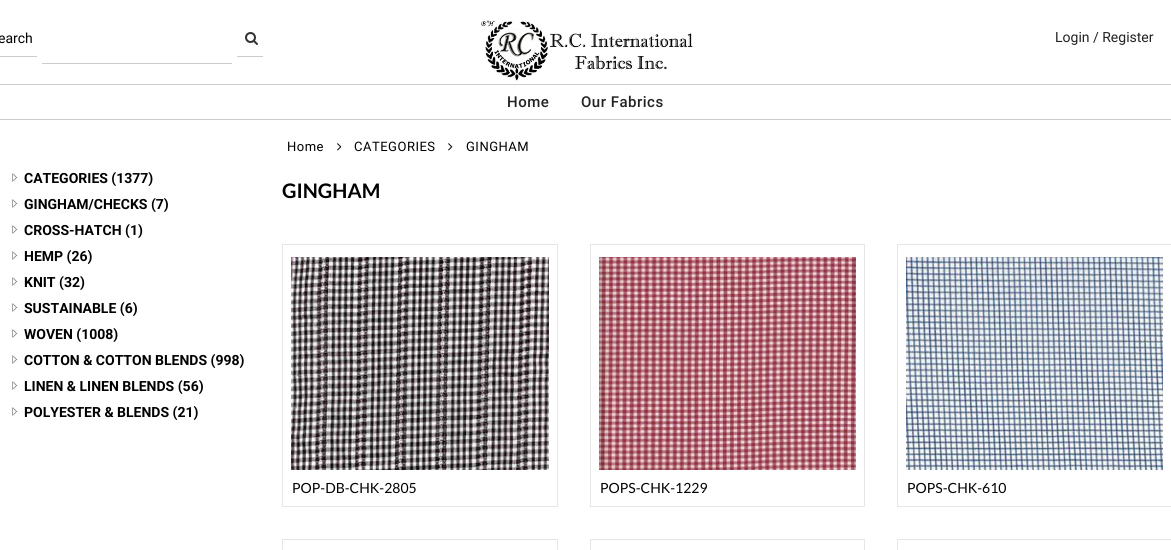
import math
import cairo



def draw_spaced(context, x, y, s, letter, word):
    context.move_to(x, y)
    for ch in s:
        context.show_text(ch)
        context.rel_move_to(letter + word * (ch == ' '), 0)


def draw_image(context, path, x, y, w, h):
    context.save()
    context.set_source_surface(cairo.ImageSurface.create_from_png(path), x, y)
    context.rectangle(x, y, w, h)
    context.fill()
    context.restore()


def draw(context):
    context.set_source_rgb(1, 1, 1)
    context.paint()
    context.set_source_rgb(204 / 255, 204 / 255, 204 / 255)
    context.rectangle(0, 56, 37, 1)
    context.fill()
    draw_image(context, "images/1.png", 245, 32, 13, 13)
    context.rectangle(237, 56, 26, 1)
    context.fill()
    context.rectangle(42, 63, 190, 1)
    context.fill()
    draw_image(context, "images/2.png", 481, 20, 212, 61)
    context.rectangle(0, 84, 1171, 1)
    context.fill()
    context.rectangle(0, 119, 1171, 1)
    context.fill()
    draw_image(context, "images/3.png", 12, 173, 6, 9)
    draw_image(context, "images/3.png", 12, 199, 6, 9)
    draw_image(context, "images/3.png", 12, 225, 6, 9)
    draw_image(context, "images/3.png", 12, 251, 6, 9)
    draw_image(context, "images/3.png", 12, 277, 6, 9)
    draw_image(context, "images/3.png", 12, 303, 6, 9)
    draw_image(context, "images/3.png", 12, 329, 6, 9)
    draw_image(context, "images/3.png", 12, 355, 6, 9)
    draw_image(context, "images/3.png", 12, 381, 6, 9)
    draw_image(context, "images/3.png", 12, 407, 6, 9)
    draw_image(context, "images/4.png", 337, 143, 5, 8)
    draw_image(context, "images/4.png", 448, 143, 5, 8)
    context.rectangle(282.5, 244.5, 275, 262)
    context.set_source_rgb(230 / 255, 230 / 255, 230 / 255)
    context.set_line_width(1)
    context.stroke()
    draw_image(context, "images/5.png", 291, 257, 258, 213)
    context.rectangle(590.5, 244.5, 274, 262)
    context.stroke()
    draw_image(context, "images/6.png", 599, 257, 257, 213)
    context.rectangle(897.5, 244.5, 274, 262)
    context.stroke()
    draw_image(context, "images/7.png", 906, 257, 257, 213)
    context.rectangle(282.5, 539.5, 275, 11)
    context.stroke()
    context.rectangle(590.5, 539.5, 274, 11)
    context.stroke()
    context.rectangle(897.5, 539.5, 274, 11)
    context.stroke()
    context.select_font_face("Roboto")
    context.set_font_size(14)
    context.set_source_rgb(0, 0, 0)
    context.move_to(-2, 43)
    context.show_text("earch")
    context.set_source_rgb(34 / 255, 34 / 255, 34 / 255)
    context.move_to(1055, 42)
    context.show_text("Login / Register")
    context.select_font_face("Roboto Medium")
    context.set_font_size(15)
    draw_spaced(context, 507, 107, "Home", 0.5, 0)
    draw_spaced(context, 581, 107, "Our Fabrics", 0.5, 0)
    context.select_font_face("Roboto", cairo.FontSlant.NORMAL, cairo.FontWeight.BOLD)
    context.set_font_size(14)
    context.set_source_rgb(0, 0, 0)
    context.move_to(24, 183)
    context.show_text("CATEGORIES (1377)")
    context.move_to(24, 209)
    context.show_text("GINGHAM/CHECKS (7)")
    context.move_to(24, 235)
    context.show_text("CROSS-HATCH (1)")
    context.move_to(24, 261)
    context.show_text("HEMP (26)")
    context.move_to(24, 287)
    context.show_text("KNIT (32)")
    context.move_to(24, 313)
    context.show_text("SUSTAINABLE (6)")
    context.move_to(24, 339)
    context.show_text("WOVEN (1008)")
    context.move_to(24, 365)
    context.show_text("COTTON & COTTON BLENDS (998)")
    context.move_to(24, 391)
    context.show_text("LINEN & LINEN BLENDS (56)")
    context.move_to(24, 417)
    context.show_text("POLYESTER & BLENDS (21)")
    context.select_font_face("Roboto")
    context.set_font_size(13)
    draw_spaced(context, 287, 151, "Home", 0.5, 0)
    draw_spaced(context, 354, 151, "CATEGORIES", 0.5, 0)
    draw_spaced(context, 466, 151, "GINGHAM", 0.5, 0)
    context.select_font_face("Lato", cairo.FontSlant.NORMAL, cairo.FontWeight.BOLD)
    context.set_font_size(20)
    context.move_to(282, 198)
    context.show_text("GINGHAM")
    context.select_font_face("Lato")
    context.set_font_size(14)
    context.move_to(292, 493)
    context.show_text("POP-DB-CHK-2805")
    context.move_to(600, 493)
    context.show_text("POPS-CHK-1229")
    context.move_to(907, 493)
    context.show_text("POPS-CHK-610")


surface = cairo.ImageSurface(cairo.Format.RGB24, 1171, 550)
context = cairo.Context(surface)
options = cairo.FontOptions()
options.set_hint_metrics(cairo.HintMetrics.OFF)
options.set_hint_style(cairo.HintStyle.NONE)
context.set_font_options(options)
context.set_miter_limit(4)
draw(context)
surface.write_to_png("out.png")
